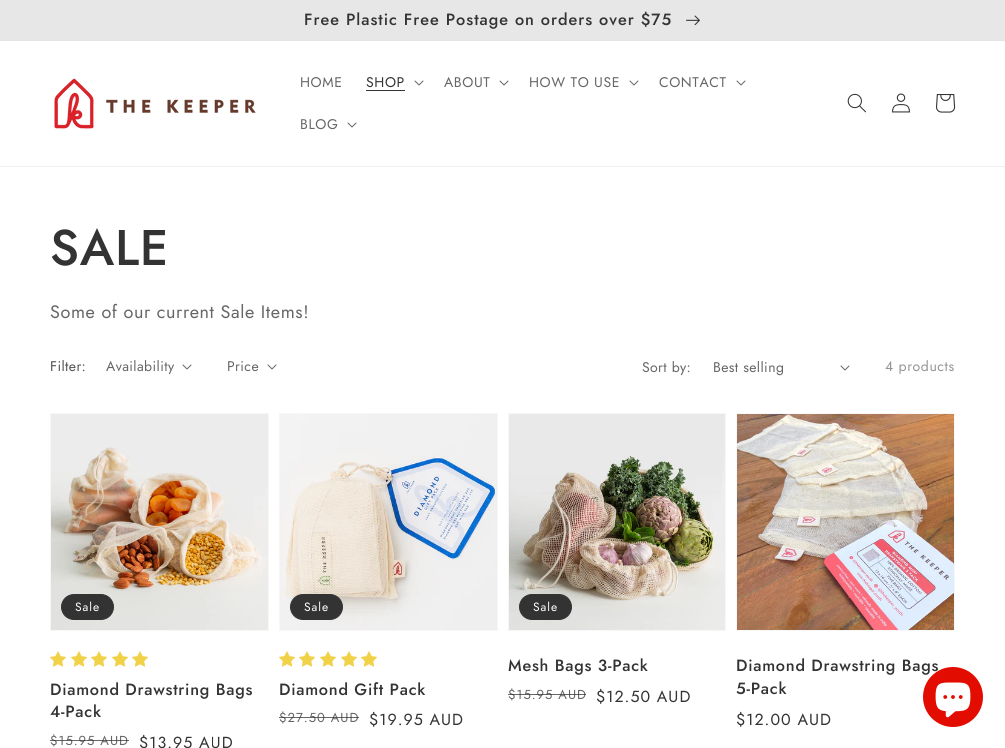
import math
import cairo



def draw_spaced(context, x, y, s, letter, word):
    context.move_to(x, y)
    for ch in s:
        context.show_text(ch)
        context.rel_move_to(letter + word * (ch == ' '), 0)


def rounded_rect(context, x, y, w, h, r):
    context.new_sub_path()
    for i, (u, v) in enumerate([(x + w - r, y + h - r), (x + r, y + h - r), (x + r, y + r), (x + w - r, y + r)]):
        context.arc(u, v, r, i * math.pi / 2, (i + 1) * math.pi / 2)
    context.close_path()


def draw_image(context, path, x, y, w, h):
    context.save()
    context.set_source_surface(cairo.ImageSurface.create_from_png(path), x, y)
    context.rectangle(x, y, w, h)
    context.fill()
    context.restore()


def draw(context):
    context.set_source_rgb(1, 1, 1)
    context.paint()
    context.set_source_rgb(228 / 255, 228 / 255, 228 / 255)
    context.rectangle(0, 40, 1005, 1)
    context.fill()
    context.set_source_rgb(231 / 255, 231 / 255, 231 / 255)
    context.rectangle(0, 0, 1005, 40)
    context.fill()
    draw_image(context, "images/1.png", 686, 15, 14, 11)
    context.set_source_rgb(239 / 255, 239 / 255, 239 / 255)
    context.rectangle(0, 166, 1005, 1)
    context.fill()
    draw_image(context, "images/2.png", 54, 78, 202, 51)
    context.set_source_rgb(51 / 255, 51 / 255, 51 / 255)
    context.rectangle(366, 90, 39, 1)
    context.fill()
    draw_image(context, "images/3.png", 414, 80, 10, 6)
    draw_image(context, "images/3.png", 499, 80, 10, 6)
    draw_image(context, "images/3.png", 629, 80, 10, 6)
    draw_image(context, "images/3.png", 736, 80, 10, 6)
    draw_image(context, "images/3.png", 347, 122, 10, 6)
    draw_image(context, "images/4.png", 847, 93, 19, 20)
    draw_image(context, "images/5.png", 892, 93, 18, 20)
    draw_image(context, "images/6.png", 936, 94, 20, 19)
    draw_image(context, "images/3.png", 182, 364, 10, 6)
    draw_image(context, "images/3.png", 267, 364, 10, 6)
    draw_image(context, "images/3.png", 840, 365, 10, 6)
    context.rectangle(50.5, 413.5, 218, 217)
    context.set_source_rgb(247 / 255, 247 / 255, 247 / 255)
    context.set_line_width(1)
    context.stroke()
    draw_image(context, "images/7.png", 51, 414, 217, 216)
    context.set_source_rgb(51 / 255, 51 / 255, 51 / 255)
    rounded_rect(context, 61.5, 594.5, 52, 25, 12.5)
    context.fill_preserve()
    context.stroke()
    draw_image(context, "images/8.png", 50, 651, 16, 16)
    draw_image(context, "images/8.png", 71, 651, 16, 16)
    draw_image(context, "images/8.png", 91, 651, 16, 16)
    draw_image(context, "images/8.png", 112, 651, 16, 16)
    draw_image(context, "images/8.png", 132, 651, 16, 16)
    context.rectangle(279.5, 413.5, 218, 217)
    context.set_source_rgb(247 / 255, 247 / 255, 247 / 255)
    context.stroke()
    draw_image(context, "images/9.png", 280, 414, 217, 216)
    context.set_source_rgb(51 / 255, 51 / 255, 51 / 255)
    rounded_rect(context, 290.5, 594.5, 52, 25, 12.5)
    context.fill_preserve()
    context.stroke()
    draw_image(context, "images/8.png", 279, 651, 16, 16)
    draw_image(context, "images/8.png", 299, 651, 16, 16)
    draw_image(context, "images/8.png", 320, 651, 16, 16)
    draw_image(context, "images/8.png", 341, 651, 16, 16)
    draw_image(context, "images/8.png", 361, 651, 16, 16)
    context.rectangle(508.5, 413.5, 217, 217)
    context.set_source_rgb(247 / 255, 247 / 255, 247 / 255)
    context.stroke()
    draw_image(context, "images/10.png", 509, 414, 216, 216)
    context.set_source_rgb(51 / 255, 51 / 255, 51 / 255)
    rounded_rect(context, 519.5, 594.5, 52, 25, 12.5)
    context.fill_preserve()
    context.stroke()
    context.rectangle(736.5, 413.5, 218, 217)
    context.set_source_rgb(247 / 255, 247 / 255, 247 / 255)
    context.stroke()
    draw_image(context, "images/11.png", 737, 414, 217, 216)
    context.select_font_face("Jost Medium")
    context.set_font_size(16.25)
    context.set_source_rgb(51 / 255, 51 / 255, 51 / 255)
    draw_spaced(context, 304, 25, "Free Plastic Free Postage on orders over $75", 1, 0)
    context.select_font_face("Jost")
    context.set_font_size(14)
    context.set_source_rgb(102 / 255, 102 / 255, 102 / 255)
    draw_spaced(context, 300, 87, "HOME", 0.6, 0)
    context.set_source_rgb(51 / 255, 51 / 255, 51 / 255)
    draw_spaced(context, 366, 87, "SHOP", 0.6, 0)
    context.set_source_rgb(102 / 255, 102 / 255, 102 / 255)
    draw_spaced(context, 444, 87, "ABOUT", 0.6, 0)
    draw_spaced(context, 529, 87, "HOW TO USE", 0.6, 0)
    draw_spaced(context, 659, 87, "CONTACT", 0.6, 0)
    draw_spaced(context, 300, 129, "BLOG", 0.6, 0)
    context.select_font_face("Jost Medium")
    context.set_font_size(50)
    context.set_source_rgb(51 / 255, 51 / 255, 51 / 255)
    draw_spaced(context, 50, 265, "SALE", 0.75, 0)
    context.select_font_face("Jost")
    context.set_font_size(18)
    context.set_source_rgb(102 / 255, 102 / 255, 102 / 255)
    draw_spaced(context, 50, 318, "Some of our current Sale Items!", 0.6, 0)
    context.set_font_size(14)
    context.set_source_rgb(82 / 255, 82 / 255, 82 / 255)
    draw_spaced(context, 50, 371, "Filter:", 0.4, 0)
    context.set_source_rgb(102 / 255, 102 / 255, 102 / 255)
    draw_spaced(context, 106, 371, "Availability", 0.4, 0)
    draw_spaced(context, 227, 371, "Price", 0.4, 0)
    draw_spaced(context, 642, 372, "Sort by:", 0.4, 0)
    draw_spaced(context, 713, 372, "Best selling", 0.4, 0)
    context.set_source_rgb(148 / 255, 148 / 255, 148 / 255)
    draw_spaced(context, 885, 371, "4 products", 0.6, 0)
    context.set_font_size(12)
    context.set_source_rgb(1, 1, 1)
    draw_spaced(context, 75, 611, "Sale", 1, 0)
    context.select_font_face("Jost Medium")
    context.set_font_size(16.25)
    context.set_source_rgb(51 / 255, 51 / 255, 51 / 255)
    draw_spaced(context, 50, 695, "Diamond Drawstring Bags", 0.75, 0)
    draw_spaced(context, 50, 717, "4-Pack", 0.75, 0)
    context.select_font_face("Jost")
    context.set_font_size(13)
    context.set_source_rgb(102 / 255, 102 / 255, 102 / 255)
    draw_spaced(context, 50, 745, "$15.95 AUD", 1, 0)
    context.set_source_rgba(51 / 255, 51 / 255, 51 / 255, 0.75)
    context.rectangle(50, 740, 79, 1)
    context.fill()
    context.set_font_size(16)
    context.set_source_rgb(51 / 255, 51 / 255, 51 / 255)
    draw_spaced(context, 139, 748, "$13.95 AUD", 1, 0)
    context.set_font_size(12)
    context.set_source_rgb(1, 1, 1)
    draw_spaced(context, 304, 611, "Sale", 1, 0)
    context.select_font_face("Jost Medium")
    context.set_font_size(16.25)
    context.set_source_rgb(51 / 255, 51 / 255, 51 / 255)
    draw_spaced(context, 279, 695, "Diamond Gift Pack", 0.75, 0)
    context.select_font_face("Jost")
    context.set_font_size(13)
    context.set_source_rgb(102 / 255, 102 / 255, 102 / 255)
    draw_spaced(context, 279, 722, "$27.50 AUD", 1, 0)
    context.set_source_rgba(51 / 255, 51 / 255, 51 / 255, 0.75)
    context.rectangle(279, 717, 80, 1)
    context.fill()
    context.set_font_size(16)
    context.set_source_rgb(51 / 255, 51 / 255, 51 / 255)
    draw_spaced(context, 369, 725, "$19.95 AUD", 1, 0)
    context.set_font_size(12)
    context.set_source_rgb(1, 1, 1)
    draw_spaced(context, 533, 611, "Sale", 1, 0)
    context.select_font_face("Jost Medium")
    context.set_font_size(16.25)
    context.set_source_rgb(51 / 255, 51 / 255, 51 / 255)
    draw_spaced(context, 508, 671, "Mesh Bags 3-Pack", 0.75, 0)
    context.select_font_face("Jost")
    context.set_font_size(13)
    context.set_source_rgb(102 / 255, 102 / 255, 102 / 255)
    draw_spaced(context, 508, 699, "$15.95 AUD", 1, 0)
    context.set_source_rgba(51 / 255, 51 / 255, 51 / 255, 0.75)
    context.rectangle(508, 694, 78, 1)
    context.fill()
    context.set_font_size(16)
    context.set_source_rgb(51 / 255, 51 / 255, 51 / 255)
    draw_spaced(context, 596, 702, "$12.50 AUD", 1, 0)
    context.select_font_face("Jost Medium")
    context.set_font_size(16.25)
    draw_spaced(context, 736, 671, "Diamond Drawstring Bags", 0.75, 0)
    draw_spaced(context, 736, 694, "5-Pack", 0.75, 0)
    context.select_font_face("Jost")
    context.set_font_size(16)
    draw_spaced(context, 736, 725, "$12.00 AUD", 1, 0)
    context.set_source_rgb(226 / 255, 13 / 255, 0)
    context.new_path()
    context.arc(953, 697, 30, 0, 2 * math.pi)
    context.fill()
    draw_image(context, "images/12.png", 935, 682, 36, 36)


surface = cairo.ImageSurface(cairo.Format.RGB24, 1005, 748)
context = cairo.Context(surface)
options = cairo.FontOptions()
options.set_hint_metrics(cairo.HintMetrics.OFF)
options.set_hint_style(cairo.HintStyle.NONE)
context.set_font_options(options)
context.set_miter_limit(4)
draw(context)
surface.write_to_png("out.png")
